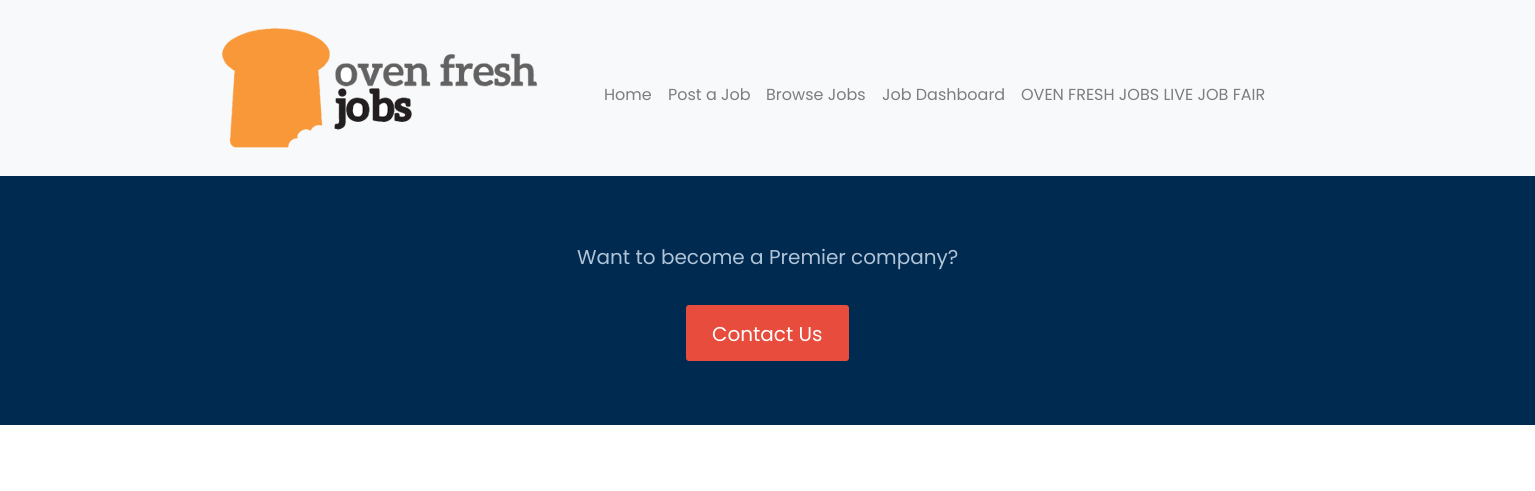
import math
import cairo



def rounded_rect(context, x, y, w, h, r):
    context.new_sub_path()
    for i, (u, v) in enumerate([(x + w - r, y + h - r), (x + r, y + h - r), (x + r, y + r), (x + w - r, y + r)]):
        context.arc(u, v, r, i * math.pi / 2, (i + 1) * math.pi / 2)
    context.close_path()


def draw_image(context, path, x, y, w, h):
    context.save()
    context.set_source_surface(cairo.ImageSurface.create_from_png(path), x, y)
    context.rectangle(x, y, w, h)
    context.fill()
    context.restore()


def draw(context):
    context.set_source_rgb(1, 1, 1)
    context.paint()
    context.set_source_rgb(248 / 255, 249 / 255, 250 / 255)
    context.rectangle(0, 0, 1535, 176)
    context.fill()
    draw_image(context, "images/1.png", 222, 28, 315, 120)
    context.set_source_rgb(0, 42 / 255, 80 / 255)
    context.rectangle(0, 176, 1535, 249)
    context.fill()
    context.set_source_rgb(232 / 255, 76 / 255, 60 / 255)
    rounded_rect(context, 687, 306, 161, 54, 2)
    context.fill_preserve()
    context.stroke()
    context.select_font_face("Poppins")
    context.set_font_size(16)
    context.set_source_rgb(124 / 255, 125 / 255, 125 / 255)
    context.move_to(604, 100)
    context.show_text("Home")
    context.move_to(668, 100)
    context.show_text("Post a Job")
    context.move_to(766, 100)
    context.show_text("Browse Jobs")
    context.move_to(882, 100)
    context.show_text("Job Dashboard")
    context.move_to(1021, 100)
    context.show_text("OVEN FRESH JOBS LIVE JOB FAIR")
    context.set_font_size(20)
    context.set_source_rgb(176 / 255, 195 / 255, 215 / 255)
    context.move_to(577, 264)
    context.show_text("Want to become a Premier company?")
    context.set_source_rgb(1, 1, 1)
    context.move_to(712, 341)
    context.show_text("Contact Us")


surface = cairo.ImageSurface(cairo.Format.RGB24, 1535, 491)
context = cairo.Context(surface)
options = cairo.FontOptions()
options.set_hint_metrics(cairo.HintMetrics.OFF)
options.set_hint_style(cairo.HintStyle.NONE)
context.set_font_options(options)
context.set_miter_limit(4)
draw(context)
surface.write_to_png("out.png")
